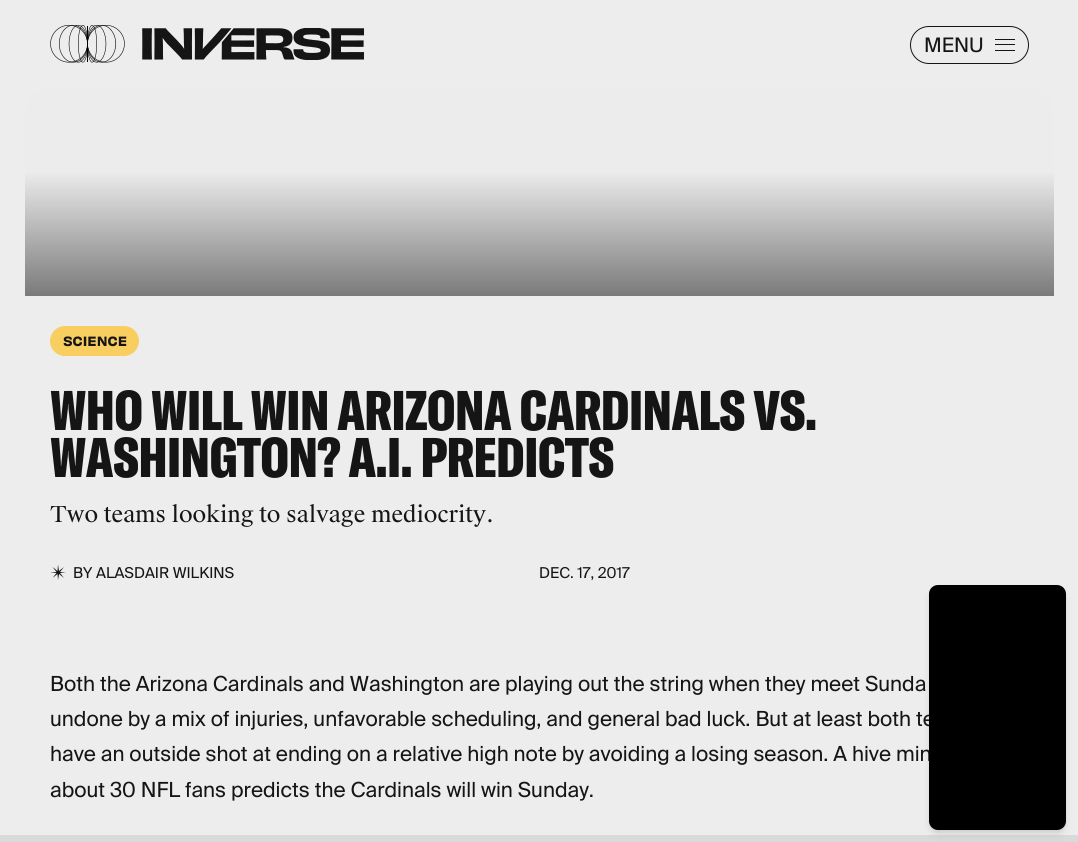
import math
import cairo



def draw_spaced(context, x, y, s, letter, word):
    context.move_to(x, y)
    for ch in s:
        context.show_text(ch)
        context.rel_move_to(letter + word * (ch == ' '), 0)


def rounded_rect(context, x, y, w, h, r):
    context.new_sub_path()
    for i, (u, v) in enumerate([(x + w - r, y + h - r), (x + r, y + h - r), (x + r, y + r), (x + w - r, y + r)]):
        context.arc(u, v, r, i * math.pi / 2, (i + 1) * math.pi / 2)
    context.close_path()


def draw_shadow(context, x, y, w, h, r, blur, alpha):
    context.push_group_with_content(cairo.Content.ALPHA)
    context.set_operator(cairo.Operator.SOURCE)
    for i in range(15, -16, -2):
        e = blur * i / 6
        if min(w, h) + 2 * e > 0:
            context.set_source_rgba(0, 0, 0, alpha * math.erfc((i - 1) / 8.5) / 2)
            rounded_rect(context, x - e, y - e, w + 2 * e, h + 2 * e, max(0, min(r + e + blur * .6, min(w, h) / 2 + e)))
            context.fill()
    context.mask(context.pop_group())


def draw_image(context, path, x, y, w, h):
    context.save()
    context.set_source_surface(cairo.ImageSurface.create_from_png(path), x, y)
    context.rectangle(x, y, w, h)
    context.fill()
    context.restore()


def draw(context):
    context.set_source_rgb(237 / 255, 237 / 255, 237 / 255)
    context.paint()
    draw_image(context, "images/1.png", 50, 25, 75, 38)
    draw_image(context, "images/2.png", 142, 28, 223, 32)
    rounded_rect(context, 910.5, 26.5, 118, 37, 18.5)
    context.set_source_rgb(21 / 255, 21 / 255, 21 / 255)
    context.set_line_width(1)
    context.stroke()
    context.rectangle(995, 39, 20, 1)
    context.fill()
    context.rectangle(995, 50, 20, 1)
    context.fill()
    context.rectangle(995, 44, 20, 1)
    context.fill()
    gradient = cairo.LinearGradient(539, 296, 539, 88)
    gradient.add_color_stop_rgba(0, 122 / 255, 122 / 255, 122 / 255, 1)
    gradient.add_color_stop_rgba(0.6, 236 / 255, 236 / 255, 236 / 255, 1)
    context.set_source(gradient)
    context.new_path()
    context.move_to(50, 88)
    context.line_to(1029, 88)
    context.curve_to(1043, 88, 1054, 99, 1054, 113)
    context.line_to(1054, 296)
    context.line_to(25, 296)
    context.line_to(25, 113)
    context.curve_to(25, 99, 36, 88, 50, 88)
    context.close_path()
    context.fill()
    context.set_source_rgb(249 / 255, 206 / 255, 96 / 255)
    rounded_rect(context, 50.5, 326.5, 88, 29, 14.5)
    context.fill_preserve()
    context.stroke()
    context.set_source_rgb(21 / 255, 21 / 255, 21 / 255)
    context.new_path()
    context.move_to(58, 564.5)
    context.line_to(57.5, 571)
    context.line_to(52.5, 567)
    context.line_to(56.5, 572)
    context.line_to(50, 572.5)
    context.line_to(56.5, 573)
    context.line_to(52.5, 578)
    context.line_to(57.5, 574)
    context.line_to(58, 580)
    context.line_to(59, 574)
    context.line_to(64, 578)
    context.line_to(60, 573)
    context.line_to(66, 572.5)
    context.line_to(60, 572)
    context.line_to(64, 567)
    context.line_to(59, 571)
    context.close_path()
    context.fill()
    context.set_source_rgb(217 / 255, 217 / 255, 217 / 255)
    context.rectangle(0, 835, 1078, 7)
    context.fill()
    context.set_source_rgb(0, 0, 0)
    draw_shadow(context, 931, 590, 133, 240, 6, 2.5, 0.1)
    draw_shadow(context, 930, 591, 135, 243, 8, 4, 0.1)
    context.select_font_face("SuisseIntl")
    context.set_font_size(20)
    context.set_source_rgb(21 / 255, 21 / 255, 21 / 255)
    context.move_to(924, 52)
    context.show_text("MENU")
    context.select_font_face("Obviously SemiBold")
    context.set_font_size(12.5)
    context.move_to(63, 346)
    context.show_text("SCIENCE")
    context.select_font_face("GT America Black")
    context.set_font_size(55)
    draw_spaced(context, 50, 430, "WHO WILL WIN ARIZONA CARDINALS VS.", -0.55, 0)
    draw_spaced(context, 50, 477, "WASHINGTON? A.I. PREDICTS", -0.55, 0)
    context.select_font_face("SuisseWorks")
    context.set_font_size(22)
    context.move_to(50, 522)
    context.show_text("Two teams looking to salvage mediocrity.")
    context.select_font_face("SuisseIntl")
    context.set_font_size(15)
    context.move_to(73, 578)
    context.show_text("BY ALASDAIR WILKINS")
    context.move_to(539, 578)
    context.show_text("DEC. 17, 2017")
    context.set_font_size(20.8)
    context.move_to(50, 691)
    context.show_text("Both the Arizona Cardinals and Washington are playing out the string when they meet Sunda")
    context.move_to(50, 726)
    context.show_text("undone by a mix of injuries, unfavorable scheduling, and general bad luck. But at least both te")
    context.move_to(50, 761)
    context.show_text("have an outside shot at ending on a relative high note by avoiding a losing season. A hive min")
    context.move_to(50, 797)
    context.show_text("about 30 NFL fans predicts the Cardinals will win Sunday.")
    context.set_source_rgb(0, 0, 0)
    rounded_rect(context, 929, 585, 137, 245, 9)
    context.fill()


surface = cairo.ImageSurface(cairo.Format.RGB24, 1078, 842)
context = cairo.Context(surface)
options = cairo.FontOptions()
options.set_hint_metrics(cairo.HintMetrics.OFF)
options.set_hint_style(cairo.HintStyle.NONE)
context.set_font_options(options)
context.set_miter_limit(4)
draw(context)
surface.write_to_png("out.png")
